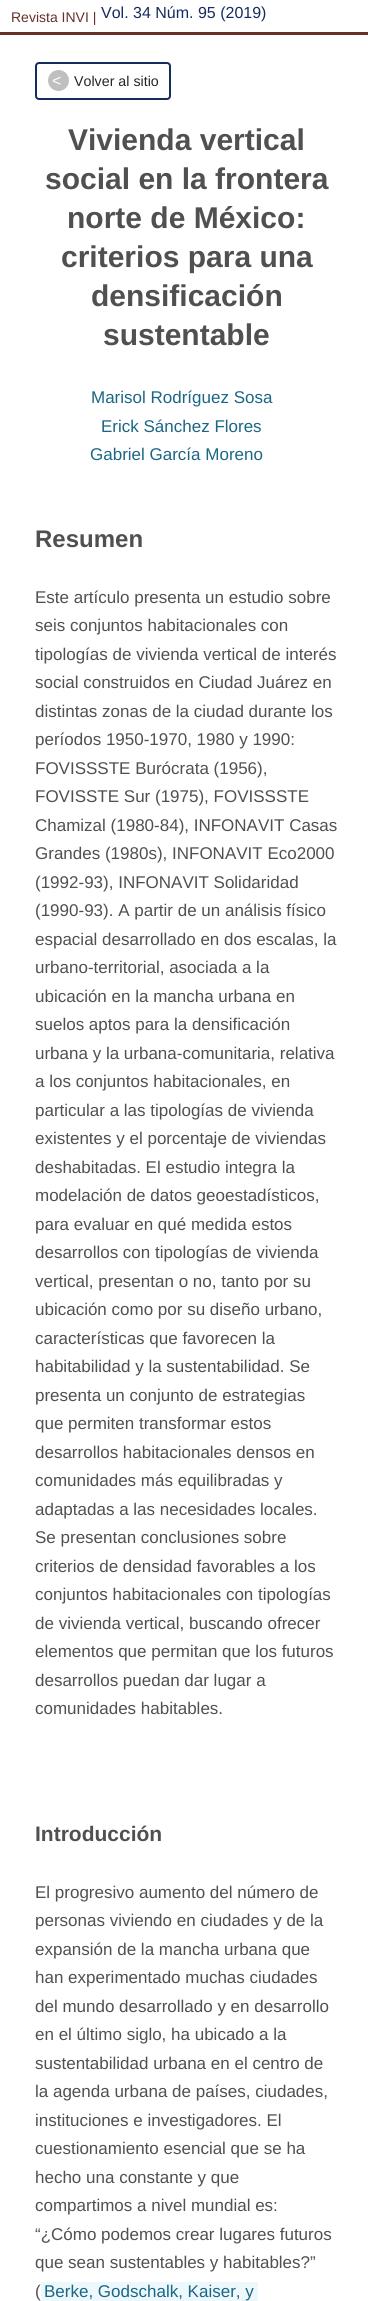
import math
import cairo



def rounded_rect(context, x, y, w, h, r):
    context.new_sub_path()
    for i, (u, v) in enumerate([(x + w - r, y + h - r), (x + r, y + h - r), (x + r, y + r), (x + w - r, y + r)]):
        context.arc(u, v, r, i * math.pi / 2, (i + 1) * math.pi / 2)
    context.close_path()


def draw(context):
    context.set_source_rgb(1, 1, 1)
    context.paint()
    context.set_source_rgb(105 / 255, 47 / 255, 43 / 255)
    context.rectangle(0, 32, 368, 3)
    context.fill()
    rounded_rect(context, 36, 63, 134, 36, 3)
    context.set_source_rgb(23 / 255, 43 / 255, 96 / 255)
    context.stroke()
    context.set_source_rgb(191 / 255, 191 / 255, 191 / 255)
    context.arc(58.5, 80.5, 10.5, 0, 2 * math.pi)
    context.fill()
    context.set_source_rgb(237 / 255, 248 / 255, 252 / 255)
    context.rectangle(41, 2282, 217, 19)
    context.fill()
    context.select_font_face("Liberation Sans")
    context.set_font_size(14)
    context.set_source_rgb(105 / 255, 47 / 255, 43 / 255)
    context.move_to(11, 22)
    context.show_text("Revista INVI |")
    context.set_font_size(16)
    context.set_source_rgb(23 / 255, 43 / 255, 96 / 255)
    context.move_to(101, 18)
    context.show_text("Vol. 34 Núm. 95 (2019)")
    context.set_source_rgb(1, 1, 1)
    context.move_to(52, 86)
    context.show_text("<")
    context.set_font_size(14.25)
    context.set_source_rgb(33 / 255, 37 / 255, 41 / 255)
    context.move_to(74, 86)
    context.show_text("Volver al sitio")
    context.select_font_face("Liberation Sans", cairo.FontSlant.NORMAL, cairo.FontWeight.BOLD)
    context.set_font_size(30)
    context.set_source_rgb(80 / 255, 80 / 255, 80 / 255)
    context.move_to(68, 150)
    context.show_text("Vivienda vertical")
    context.move_to(45, 189)
    context.show_text("social en la frontera")
    context.move_to(67, 228)
    context.show_text("norte de México:")
    context.move_to(61, 267)
    context.show_text("criterios para una")
    context.move_to(91, 306)
    context.show_text("densificación")
    context.move_to(103, 345)
    context.show_text("sustentable")
    context.select_font_face("Liberation Sans")
    context.set_font_size(17)
    context.set_source_rgb(27 / 255, 102 / 255, 133 / 255)
    context.move_to(91, 403)
    context.show_text("Marisol Rodríguez Sosa")
    context.move_to(101, 432)
    context.show_text("Erick Sánchez Flores")
    context.move_to(90, 460)
    context.show_text("Gabriel García Moreno")
    context.select_font_face("Liberation Sans", cairo.FontSlant.NORMAL, cairo.FontWeight.BOLD)
    context.set_font_size(24)
    context.set_source_rgb(80 / 255, 80 / 255, 80 / 255)
    context.move_to(35, 547)
    context.show_text("Resumen")
    context.select_font_face("Liberation Sans")
    context.set_font_size(17)
    context.move_to(35, 603)
    context.show_text("Este artículo presenta un estudio sobre")
    context.move_to(35, 631)
    context.show_text("seis conjuntos habitacionales con")
    context.move_to(35, 660)
    context.show_text("tipologías de vivienda vertical de interés")
    context.move_to(35, 688)
    context.show_text("social construidos en Ciudad Juárez en")
    context.move_to(35, 717)
    context.show_text("distintas zonas de la ciudad durante los")
    context.move_to(35, 745)
    context.show_text("períodos 1950-1970, 1980 y 1990:")
    context.move_to(35, 774)
    context.show_text("FOVISSSTE Burócrata (1956),")
    context.move_to(35, 802)
    context.show_text("FOVISSTE Sur (1975), FOVISSSTE")
    context.move_to(35, 831)
    context.show_text("Chamizal (1980-84), INFONAVIT Casas")
    context.move_to(35, 859)
    context.show_text("Grandes (1980s), INFONAVIT Eco2000")
    context.move_to(35, 888)
    context.show_text("(1992-93), INFONAVIT Solidaridad")
    context.move_to(35, 916)
    context.show_text("(1990-93). A partir de un análisis físico")
    context.move_to(35, 945)
    context.show_text("espacial desarrollado en dos escalas, la")
    context.move_to(35, 973)
    context.show_text("urbano-territorial, asociada a la")
    context.move_to(35, 1002)
    context.show_text("ubicación en la mancha urbana en")
    context.move_to(35, 1030)
    context.show_text("suelos aptos para la densificación")
    context.move_to(35, 1059)
    context.show_text("urbana y la urbana-comunitaria, relativa")
    context.move_to(35, 1087)
    context.show_text("a los conjuntos habitacionales, en")
    context.move_to(35, 1116)
    context.show_text("particular a las tipologías de vivienda")
    context.move_to(35, 1144)
    context.show_text("existentes y el porcentaje de viviendas")
    context.move_to(35, 1173)
    context.show_text("deshabitadas. El estudio integra la")
    context.move_to(35, 1201)
    context.show_text("modelación de datos geoestadísticos,")
    context.move_to(35, 1230)
    context.show_text("para evaluar en qué medida estos")
    context.move_to(35, 1258)
    context.show_text("desarrollos con tipologías de vivienda")
    context.move_to(35, 1287)
    context.show_text("vertical, presentan o no, tanto por su")
    context.move_to(35, 1315)
    context.show_text("ubicación como por su diseño urbano,")
    context.move_to(35, 1344)
    context.show_text("características que favorecen la")
    context.move_to(35, 1372)
    context.show_text("habitabilidad y la sustentabilidad. Se")
    context.move_to(35, 1401)
    context.show_text("presenta un conjunto de estrategias")
    context.move_to(35, 1429)
    context.show_text("que permiten transformar estos")
    context.move_to(35, 1458)
    context.show_text("desarrollos habitacionales densos en")
    context.move_to(35, 1486)
    context.show_text("comunidades más equilibradas y")
    context.move_to(35, 1515)
    context.show_text("adaptadas a las necesidades locales.")
    context.move_to(35, 1543)
    context.show_text("Se presentan conclusiones sobre")
    context.move_to(35, 1572)
    context.show_text("criterios de densidad favorables a los")
    context.move_to(35, 1600)
    context.show_text("conjuntos habitacionales con tipologías")
    context.move_to(35, 1629)
    context.show_text("de vivienda vertical, buscando ofrecer")
    context.move_to(35, 1657)
    context.show_text("elementos que permitan que los futuros")
    context.move_to(35, 1686)
    context.show_text("desarrollos puedan dar lugar a")
    context.move_to(35, 1714)
    context.show_text("comunidades habitables.")
    context.select_font_face("Liberation Sans", cairo.FontSlant.NORMAL, cairo.FontWeight.BOLD)
    context.set_font_size(21)
    context.move_to(35, 1841)
    context.show_text("Introducción")
    context.select_font_face("Liberation Sans")
    context.set_font_size(17)
    context.move_to(35, 1898)
    context.show_text("El progresivo aumento del número de")
    context.move_to(35, 1926)
    context.show_text("personas viviendo en ciudades y de la")
    context.move_to(35, 1955)
    context.show_text("expansión de la mancha urbana que")
    context.move_to(35, 1983)
    context.show_text("han experimentado muchas ciudades")
    context.move_to(35, 2012)
    context.show_text("del mundo desarrollado y en desarrollo")
    context.move_to(35, 2040)
    context.show_text("en el último siglo, ha ubicado a la")
    context.move_to(35, 2069)
    context.show_text("sustentabilidad urbana en el centro de")
    context.move_to(35, 2097)
    context.show_text("la agenda urbana de países, ciudades,")
    context.move_to(35, 2126)
    context.show_text("instituciones e investigadores. El")
    context.move_to(35, 2154)
    context.show_text("cuestionamiento esencial que se ha")
    context.move_to(35, 2183)
    context.show_text("hecho una constante y que")
    context.move_to(35, 2211)
    context.show_text("compartimos a nivel mundial es:")
    context.move_to(35, 2240)
    context.show_text("“¿Cómo podemos crear lugares futuros")
    context.move_to(35, 2268)
    context.show_text("que sean sustentables y habitables?”")
    context.move_to(35, 2297)
    context.show_text("(")
    context.set_source_rgb(27 / 255, 102 / 255, 133 / 255)
    context.move_to(44, 2297)
    context.show_text("Berke, Godschalk, Kaiser, y")


surface = cairo.ImageSurface(cairo.Format.RGB24, 368, 2301)
context = cairo.Context(surface)
options = cairo.FontOptions()
options.set_hint_metrics(cairo.HintMetrics.OFF)
options.set_hint_style(cairo.HintStyle.NONE)
context.set_font_options(options)
context.set_miter_limit(4)
draw(context)
surface.write_to_png("out.png")
